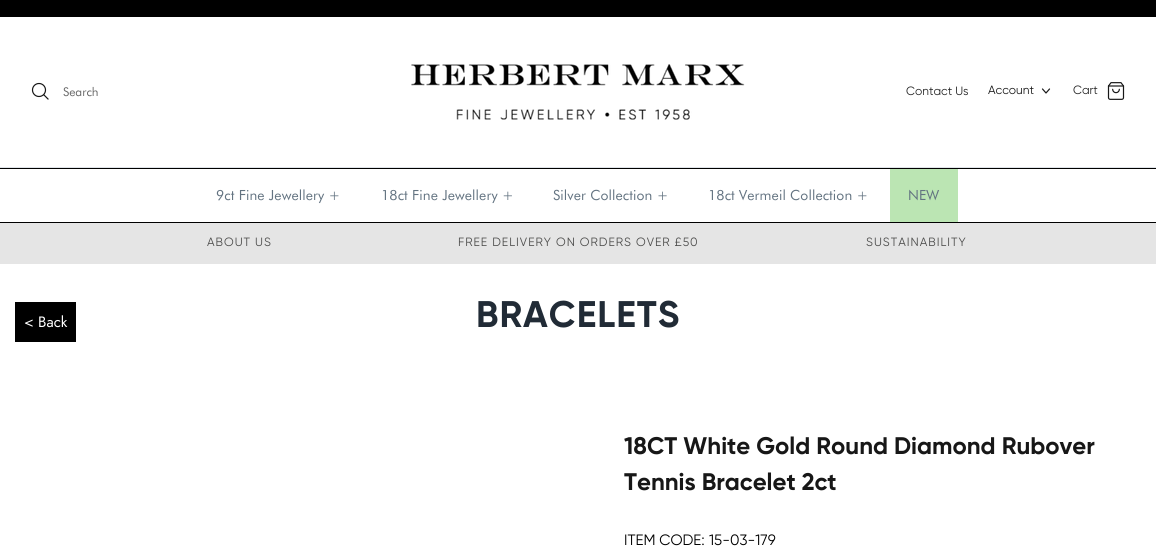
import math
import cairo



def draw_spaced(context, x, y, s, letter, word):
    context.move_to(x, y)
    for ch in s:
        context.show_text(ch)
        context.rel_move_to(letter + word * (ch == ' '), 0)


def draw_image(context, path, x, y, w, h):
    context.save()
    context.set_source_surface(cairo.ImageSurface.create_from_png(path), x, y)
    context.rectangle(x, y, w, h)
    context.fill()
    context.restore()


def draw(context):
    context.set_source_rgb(1, 1, 1)
    context.paint()
    context.set_source_rgb(0, 0, 0)
    context.rectangle(0, 0, 1156, 17)
    context.fill()
    context.set_source_rgb(223 / 255, 227 / 255, 232 / 255)
    context.rectangle(0, 167, 1156, 1)
    context.fill()
    context.arc(39, 90, 6.5, 0, 2 * math.pi)
    context.set_source_rgb(23 / 255, 23 / 255, 23 / 255)
    context.set_line_width(1.2)
    context.stroke()
    context.new_path()
    context.move_to(44, 95)
    context.line_to(48, 99)
    context.set_line_cap(cairo.LineCap.SQUARE)
    context.stroke()
    draw_image(context, "images/1.png", 411, 64, 334, 56)
    context.new_path()
    context.move_to(1042.5, 89)
    context.line_to(1046, 93)
    context.line_to(1049.5, 89)
    context.set_line_cap(cairo.LineCap.ROUND)
    context.set_line_join(cairo.LineJoin.ROUND)
    context.stroke()
    draw_image(context, "images/2.png", 1107, 82, 18, 18)
    context.set_source_rgb(0, 0, 0)
    context.rectangle(0, 168, 1156, 1)
    context.fill()
    context.rectangle(0, 222, 1156, 1)
    context.fill()
    context.set_source_rgb(187 / 255, 229 / 255, 179 / 255)
    context.rectangle(890, 169, 68, 53)
    context.fill()
    context.set_source_rgb(229 / 255, 229 / 255, 229 / 255)
    context.rectangle(0, 223, 1156, 41)
    context.fill()
    context.set_source_rgb(0, 0, 0)
    context.rectangle(15, 302, 61, 40)
    context.fill()
    context.select_font_face("Futura")
    context.set_font_size(12)
    context.set_source_rgb(102 / 255, 102 / 255, 102 / 255)
    context.move_to(63, 96)
    context.show_text("Search")
    context.select_font_face("Gilroy")
    context.set_source_rgb(35 / 255, 35 / 255, 35 / 255)
    context.move_to(906, 95)
    context.show_text("Contact Us")
    context.set_source_rgb(23 / 255, 23 / 255, 23 / 255)
    context.move_to(988, 94)
    context.show_text("Account")
    context.set_source_rgb(35 / 255, 35 / 255, 35 / 255)
    context.move_to(1073, 94)
    context.show_text("Cart")
    context.select_font_face("Futura")
    context.set_font_size(14)
    context.set_source_rgb(99 / 255, 115 / 255, 129 / 255)
    draw_spaced(context, 216, 200, "9ct Fine Jewellery +", 0.1, 0)
    draw_spaced(context, 381, 200, "18ct Fine Jewellery +", 0.1, 0)
    draw_spaced(context, 553, 200, "Silver Collection +", 0.1, 0)
    draw_spaced(context, 708, 200, "18ct Vermeil Collection +", 0.1, 0)
    draw_spaced(context, 908, 200, "NEW", 0.1, 0)
    context.select_font_face("Gilroy")
    context.set_font_size(12)
    context.set_source_rgb(76 / 255, 76 / 255, 75 / 255)
    draw_spaced(context, 207, 246, "ABOUT US", 1, 0)
    draw_spaced(context, 458, 246, "FREE DELIVERY ON ORDERS OVER £50", 1, 0)
    draw_spaced(context, 866, 246, "SUSTAINABILITY", 1, 0)
    context.select_font_face("Gilroy", cairo.FontSlant.NORMAL, cairo.FontWeight.BOLD)
    context.set_font_size(37)
    context.set_source_rgb(33 / 255, 43 / 255, 54 / 255)
    draw_spaced(context, 476, 327, "BRACELETS", 1, 0)
    context.select_font_face("Jost")
    context.set_font_size(15)
    context.set_source_rgb(1, 1, 1)
    context.move_to(24, 327)
    context.show_text("< Back")
    context.select_font_face("Gilroy", cairo.FontSlant.NORMAL, cairo.FontWeight.BOLD)
    context.set_font_size(24)
    context.set_source_rgb(23 / 255, 23 / 255, 23 / 255)
    context.move_to(624, 454)
    context.show_text("18CT White Gold Round Diamond Rubover")
    context.move_to(624, 490)
    context.show_text("Tennis Bracelet 2ct")
    context.select_font_face("Gilroy")
    context.set_font_size(15)
    context.set_source_rgb(0, 0, 0)
    context.move_to(624, 545)
    context.show_text("ITEM CODE:")
    context.move_to(709, 545)
    context.show_text("15-03-179")


surface = cairo.ImageSurface(cairo.Format.RGB24, 1156, 558)
context = cairo.Context(surface)
options = cairo.FontOptions()
options.set_hint_metrics(cairo.HintMetrics.OFF)
options.set_hint_style(cairo.HintStyle.NONE)
context.set_font_options(options)
context.set_miter_limit(4)
draw(context)
surface.write_to_png("out.png")
